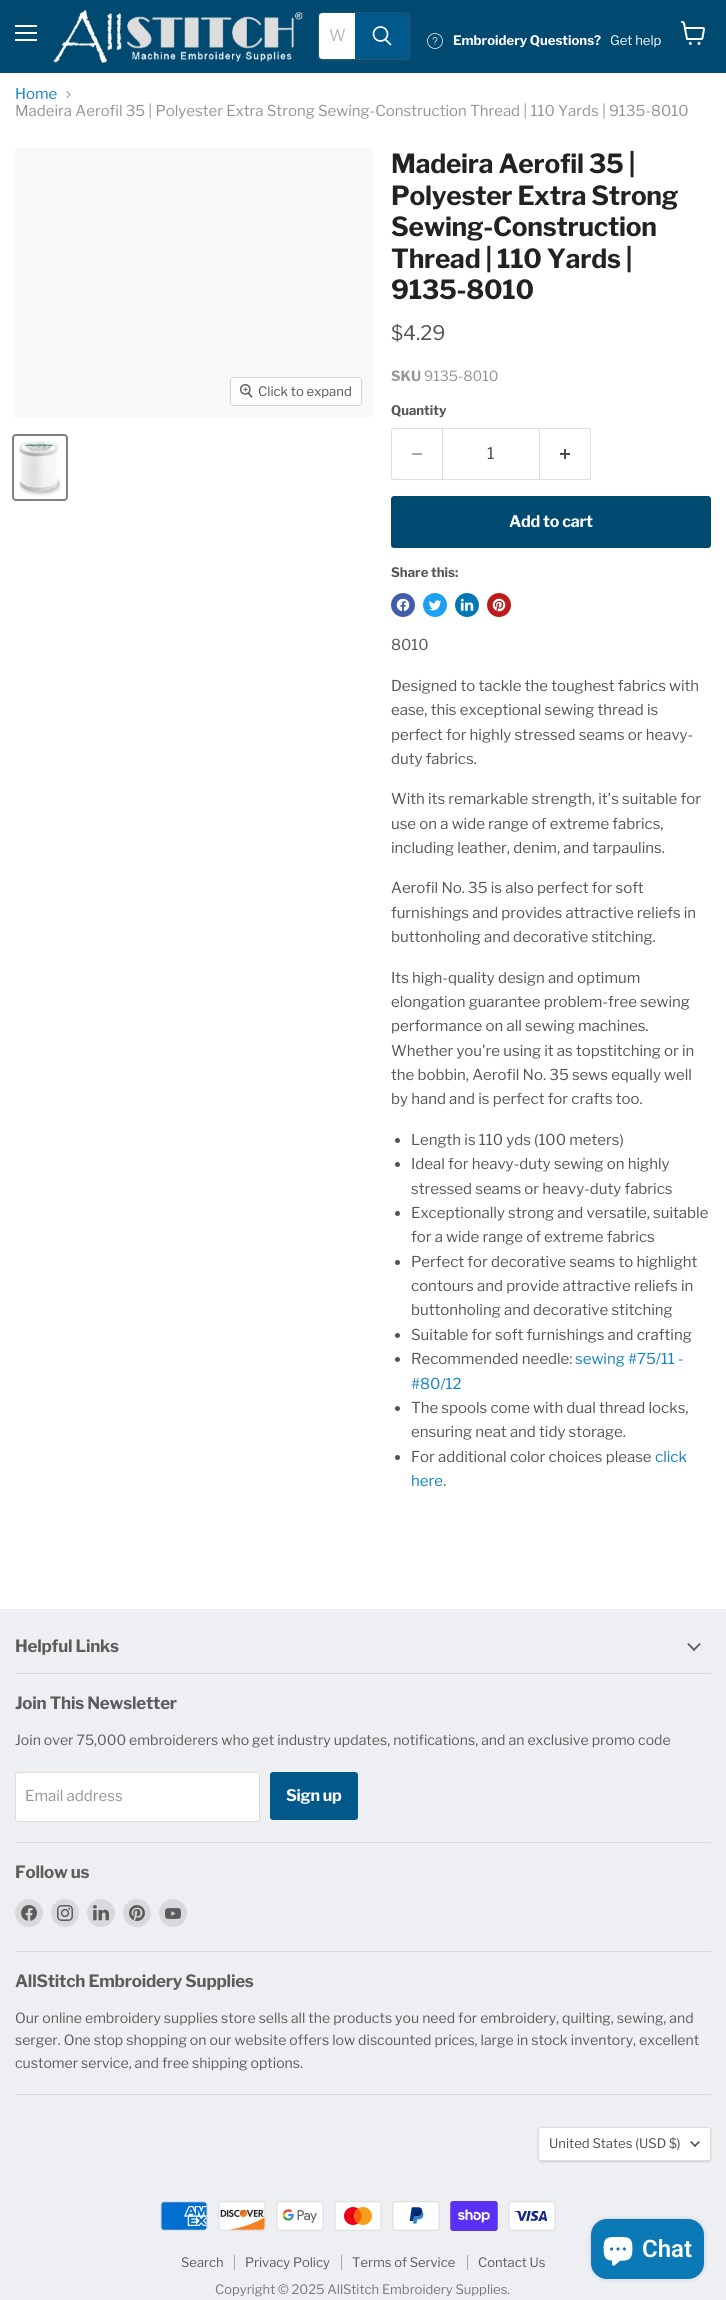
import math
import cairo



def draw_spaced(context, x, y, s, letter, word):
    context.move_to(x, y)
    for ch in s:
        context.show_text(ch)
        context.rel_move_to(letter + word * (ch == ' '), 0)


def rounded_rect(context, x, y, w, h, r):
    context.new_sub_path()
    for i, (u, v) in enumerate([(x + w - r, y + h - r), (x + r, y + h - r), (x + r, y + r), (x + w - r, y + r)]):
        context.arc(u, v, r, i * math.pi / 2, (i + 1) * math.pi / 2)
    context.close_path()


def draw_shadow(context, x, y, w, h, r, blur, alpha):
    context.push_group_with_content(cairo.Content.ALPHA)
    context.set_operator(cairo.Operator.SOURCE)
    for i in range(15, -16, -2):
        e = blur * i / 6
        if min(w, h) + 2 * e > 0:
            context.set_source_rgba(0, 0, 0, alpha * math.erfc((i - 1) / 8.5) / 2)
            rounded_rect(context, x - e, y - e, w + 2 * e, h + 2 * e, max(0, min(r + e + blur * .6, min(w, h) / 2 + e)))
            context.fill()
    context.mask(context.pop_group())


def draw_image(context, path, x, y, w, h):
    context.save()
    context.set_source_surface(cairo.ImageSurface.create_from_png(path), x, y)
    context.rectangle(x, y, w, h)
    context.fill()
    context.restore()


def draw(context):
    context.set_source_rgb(1, 1, 1)
    context.paint()
    context.set_source_rgb(0, 73 / 255, 112 / 255)
    context.rectangle(0, 0, 726, 73)
    context.fill()
    context.set_source_rgb(1, 1, 1)
    context.rectangle(15, 25, 22, 2)
    context.fill()
    context.rectangle(15, 32, 22, 2)
    context.fill()
    context.rectangle(15, 39, 22, 2)
    context.fill()
    draw_image(context, "images/1.png", 53, 10, 250, 53)
    context.set_source_rgb(128 / 255, 128 / 255, 128 / 255)
    draw_shadow(context, 318, 14, 92, 48, 4, 1.5, 0.11)
    rounded_rect(context, 318.5, 12.5, 91, 47, 3.5)
    context.set_source_rgba(128 / 255, 128 / 255, 128 / 255, 0.2)
    context.set_line_width(1)
    context.stroke()
    context.set_source_rgb(1, 1, 1)
    context.new_path()
    context.move_to(322, 13)
    context.line_to(355, 13)
    context.line_to(355, 59)
    context.line_to(322, 59)
    context.curve_to(320.5, 59, 319, 57.5, 319, 56)
    context.line_to(319, 16)
    context.curve_to(319, 14.5, 320.5, 13, 322, 13)
    context.close_path()
    context.fill()
    context.set_source_rgb(0, 89 / 255, 138 / 255)
    context.new_path()
    context.move_to(355.5, 13.5)
    context.line_to(406, 13.5)
    context.curve_to(407.5, 13.5, 408.5, 14.5, 408.5, 16)
    context.line_to(408.5, 56)
    context.curve_to(408.5, 57.5, 407.5, 58.5, 406, 58.5)
    context.line_to(355.5, 58.5)
    context.close_path()
    context.fill_preserve()
    context.stroke()
    context.new_path()
    context.move_to(390.5, 44.5)
    context.line_to(385.5, 39.5)
    context.set_source_rgb(1, 1, 1)
    context.set_line_width(1.7)
    context.set_line_cap(cairo.LineCap.ROUND)
    context.stroke()
    context.arc(380.5, 34, 7, 0, 2 * math.pi)
    context.set_line_cap(cairo.LineCap.BUTT)
    context.stroke()
    draw_image(context, "images/2.png", 427, 33, 16, 16)
    draw_image(context, "images/3.png", 681, 21, 24, 24)
    draw_image(context, "images/4.png", 66, 91, 5, 7)
    context.set_source_rgb(248 / 255, 248 / 255, 248 / 255)
    context.rectangle(15, 148, 358, 269)
    context.fill()
    rounded_rect(context, 230.5, 377.5, 131, 28, 3.5)
    context.set_source_rgb(211 / 255, 211 / 255, 211 / 255)
    context.set_line_width(1)
    context.stroke()
    context.set_source_rgba(1, 1, 1, 0.9)
    rounded_rect(context, 231, 378, 130, 27, 3)
    context.fill()
    draw_image(context, "images/5.png", 240, 384, 13, 14)
    rounded_rect(context, 13, 435, 54, 65, 3)
    context.set_source_rgb(129 / 255, 129 / 255, 129 / 255)
    context.set_line_width(2)
    context.stroke()
    draw_image(context, "images/6.png", 18, 441, 44, 56)
    context.set_source_rgb(221 / 255, 221 / 255, 221 / 255)
    context.set_fill_rule(cairo.FillRule.EVEN_ODD)
    context.new_path()
    context.move_to(394, 428)
    context.line_to(442, 428)
    context.line_to(442, 480)
    context.line_to(394, 480)
    context.curve_to(392, 480, 391, 479, 391, 477)
    context.line_to(391, 431)
    context.curve_to(391, 429, 392, 428, 394, 428)
    context.close_path()
    context.move_to(394, 429)
    context.line_to(442, 429)
    context.line_to(442, 479)
    context.line_to(394, 479)
    context.curve_to(393, 479, 392, 478, 392, 477)
    context.line_to(392, 431)
    context.curve_to(392, 430, 393, 429, 394, 429)
    context.close_path()
    context.fill()
    context.set_source_rgb(166 / 255, 166 / 255, 166 / 255)
    context.rectangle(412, 453, 10, 2)
    context.fill()
    context.rectangle(442.5, 428.5, 97, 51)
    context.set_source_rgb(221 / 255, 221 / 255, 221 / 255)
    context.set_line_width(1)
    context.stroke()
    context.new_path()
    context.move_to(540, 428)
    context.line_to(588, 428)
    context.curve_to(590, 428, 591, 429, 591, 431)
    context.line_to(591, 477)
    context.curve_to(591, 479, 590, 480, 588, 480)
    context.line_to(540, 480)
    context.close_path()
    context.move_to(540, 429)
    context.line_to(588, 429)
    context.curve_to(589, 429, 590, 430, 590, 431)
    context.line_to(590, 477)
    context.curve_to(590, 478, 589, 479, 588, 479)
    context.line_to(540, 479)
    context.close_path()
    context.fill()
    draw_image(context, "images/7.png", 560, 449, 10, 10)
    context.set_source_rgb(0, 73 / 255, 112 / 255)
    rounded_rect(context, 391, 496, 320, 52, 3)
    context.fill()
    context.set_source_rgb(66 / 255, 93 / 255, 171 / 255)
    context.arc(403, 605, 12, 0, 2 * math.pi)
    context.fill()
    draw_image(context, "images/8.png", 396, 598, 14, 14)
    context.set_source_rgb(29 / 255, 161 / 255, 242 / 255)
    context.arc(435, 605, 12, 0, 2 * math.pi)
    context.fill()
    draw_image(context, "images/9.png", 429, 600, 13, 11)
    context.set_source_rgb(0, 119 / 255, 181 / 255)
    context.arc(467, 605, 12, 0, 2 * math.pi)
    context.fill()
    draw_image(context, "images/10.png", 460, 598, 14, 13)
    context.set_source_rgb(189 / 255, 28 / 255, 28 / 255)
    context.arc(499, 605, 12, 0, 2 * math.pi)
    context.fill()
    draw_image(context, "images/11.png", 492, 598, 14, 14)
    context.set_source_rgb(85 / 255, 85 / 255, 85 / 255)
    context.arc(397.5, 1140.5, 2.5, 0, 2 * math.pi)
    context.fill()
    context.arc(397.5, 1164.5, 2.5, 0, 2 * math.pi)
    context.fill()
    context.arc(397.5, 1213.5, 2.5, 0, 2 * math.pi)
    context.fill()
    context.arc(397.5, 1262.5, 2.5, 0, 2 * math.pi)
    context.fill()
    context.arc(397.5, 1335.5, 2.5, 0, 2 * math.pi)
    context.fill()
    context.arc(397.5, 1359.5, 2.5, 0, 2 * math.pi)
    context.fill()
    context.arc(397.5, 1408.5, 2.5, 0, 2 * math.pi)
    context.fill()
    context.arc(397.5, 1457.5, 2.5, 0, 2 * math.pi)
    context.fill()
    context.set_source_rgb(237 / 255, 239 / 255, 243 / 255)
    context.rectangle(0, 1609, 726, 691)
    context.fill()
    context.set_source_rgb(215 / 255, 217 / 255, 220 / 255)
    context.rectangle(15, 1673, 696, 1)
    context.fill()
    draw_image(context, "images/12.png", 687, 1643, 14, 8)
    context.rectangle(15, 1842, 696, 1)
    context.fill()
    context.set_source_rgb(1, 1, 1)
    rounded_rect(context, 15.5, 1772.5, 244, 49, 2.5)
    context.fill_preserve()
    context.set_source_rgb(221 / 255, 221 / 255, 221 / 255)
    context.stroke()
    context.set_source_rgb(0, 89 / 255, 138 / 255)
    rounded_rect(context, 270.5, 1772.5, 87, 47, 2.5)
    context.fill_preserve()
    context.stroke()
    context.set_source_rgb(215 / 255, 217 / 255, 220 / 255)
    context.rectangle(15, 1951, 696, 1)
    context.fill()
    context.arc(29, 1913, 14, 0, 2 * math.pi)
    context.fill()
    draw_image(context, "images/13.png", 21, 1905, 16, 16)
    context.arc(65, 1913, 14, 0, 2 * math.pi)
    context.fill()
    draw_image(context, "images/14.png", 57, 1905, 16, 16)
    context.arc(101, 1913, 14, 0, 2 * math.pi)
    context.fill()
    draw_image(context, "images/15.png", 93, 1905, 16, 16)
    context.arc(137, 1913, 14, 0, 2 * math.pi)
    context.fill()
    draw_image(context, "images/16.png", 129, 1905, 16, 16)
    context.arc(173, 1913, 14, 0, 2 * math.pi)
    context.fill()
    draw_image(context, "images/17.png", 165, 1908, 16, 11)
    context.rectangle(15, 2094, 696, 1)
    context.fill()
    context.set_source_rgb(0, 0, 0)
    draw_shadow(context, 538, 2128, 173, 34, 3, 1, 0.15)
    context.set_source_rgb(1, 1, 1)
    rounded_rect(context, 538.5, 2127.5, 172, 33, 2.5)
    context.fill_preserve()
    context.set_source_rgb(221 / 255, 221 / 255, 221 / 255)
    context.stroke()
    draw_image(context, "images/18.png", 690, 2141, 10, 6)
    draw_image(context, "images/19.png", 160, 2201, 48, 30)
    draw_image(context, "images/20.png", 218, 2201, 48, 30)
    draw_image(context, "images/21.png", 276, 2201, 48, 30)
    draw_image(context, "images/22.png", 334, 2201, 48, 30)
    draw_image(context, "images/23.png", 392, 2201, 48, 30)
    draw_image(context, "images/24.png", 450, 2201, 48, 30)
    draw_image(context, "images/25.png", 508, 2201, 48, 30)
    context.set_source_rgb(165 / 255, 166 / 255, 168 / 255)
    context.rectangle(234, 2255, 1, 15)
    context.fill()
    context.rectangle(341, 2255, 1, 15)
    context.fill()
    context.rectangle(467, 2255, 1, 15)
    context.fill()
    context.set_source_rgb(0, 0, 0)
    draw_shadow(context, 591, 2219, 113, 60, 16, 2.5, 0.15)
    context.set_source_rgb(11 / 255, 121 / 255, 182 / 255)
    rounded_rect(context, 591, 2219, 113, 60, 16)
    context.fill()
    draw_image(context, "images/26.png", 603, 2237, 30, 29)
    context.select_font_face("Libre Franklin")
    context.set_font_size(16)
    context.set_source_rgb(184 / 255, 184 / 255, 184 / 255)
    context.move_to(329, 41)
    context.show_text("W")
    context.select_font_face("Libre Franklin", cairo.FontSlant.NORMAL, cairo.FontWeight.BOLD)
    context.set_font_size(13.1)
    context.set_source_rgb(1, 1, 1)
    context.move_to(453, 45)
    context.show_text("Embroidery Questions?")
    context.select_font_face("Libre Franklin")
    context.move_to(610, 45)
    context.show_text("Get help")
    context.set_font_size(15)
    context.set_source_rgb(18 / 255, 131 / 255, 193 / 255)
    context.move_to(15, 99)
    context.show_text("Home")
    context.set_source_rgb(148 / 255, 148 / 255, 148 / 255)
    context.move_to(15, 116)
    context.show_text("Madeira Aerofil 35 | Polyester Extra Strong Sewing-Construction Thread | 110 Yards | 9135-8010")
    context.set_font_size(13.1)
    context.set_source_rgb(85 / 255, 85 / 255, 85 / 255)
    context.move_to(258, 396)
    context.show_text("Click to expand")
    context.select_font_face("Libre Franklin", cairo.FontSlant.NORMAL, cairo.FontWeight.BOLD)
    context.set_font_size(26.25)
    context.set_source_rgb(34 / 255, 34 / 255, 34 / 255)
    draw_spaced(context, 391, 173, "Madeira Aerofil 35 |", -0.25, 0)
    draw_spaced(context, 391, 205, "Polyester Extra Strong", -0.25, 0)
    draw_spaced(context, 391, 236, "Sewing-Construction", -0.25, 0)
    draw_spaced(context, 391, 268, "Thread | 110 Yards |", -0.25, 0)
    draw_spaced(context, 391, 299, "9135-8010", -0.25, 0)
    context.select_font_face("Libre Franklin")
    context.set_font_size(20)
    context.set_source_rgb(85 / 255, 85 / 255, 85 / 255)
    context.move_to(391, 340)
    context.show_text("$4.29")
    context.select_font_face("Libre Franklin", cairo.FontSlant.NORMAL, cairo.FontWeight.BOLD)
    context.set_font_size(14)
    context.set_source_rgb(148 / 255, 148 / 255, 148 / 255)
    context.move_to(391, 381)
    context.show_text("SKU")
    context.select_font_face("Libre Franklin")
    context.move_to(424, 381)
    context.show_text("9135-8010")
    context.select_font_face("Libre Franklin", cairo.FontSlant.NORMAL, cairo.FontWeight.BOLD)
    context.set_font_size(13.1)
    context.set_source_rgb(85 / 255, 85 / 255, 85 / 255)
    context.move_to(391, 415)
    context.show_text("Quantity")
    context.select_font_face("Libre Franklin")
    context.set_font_size(16)
    context.set_source_rgb(77 / 255, 77 / 255, 77 / 255)
    context.move_to(487, 459)
    context.show_text("1")
    context.select_font_face("Libre Franklin", cairo.FontSlant.NORMAL, cairo.FontWeight.BOLD)
    context.set_source_rgb(1, 1, 1)
    draw_spaced(context, 509, 527, "Add to cart", -0.25, 0)
    context.set_font_size(13.1)
    context.set_source_rgb(85 / 255, 85 / 255, 85 / 255)
    context.move_to(391, 577)
    context.show_text("Share this:")
    context.select_font_face("Libre Franklin")
    context.set_font_size(15)
    context.move_to(391, 650)
    context.show_text("8010")
    context.move_to(391, 691)
    context.show_text("Designed to tackle the toughest fabrics with")
    context.move_to(391, 715)
    context.show_text("ease, this exceptional sewing thread is")
    context.move_to(391, 740)
    context.show_text("perfect for highly stressed seams or heavy-")
    context.move_to(391, 764)
    context.show_text("duty fabrics.")
    context.move_to(391, 804)
    context.show_text("With its remarkable strength, it's suitable for")
    context.move_to(391, 829)
    context.show_text("use on a wide range of extreme fabrics,")
    context.move_to(391, 853)
    context.show_text("including leather, denim, and tarpaulins.")
    context.move_to(391, 893)
    context.show_text("Aerofil No. 35 is also perfect for soft")
    context.move_to(391, 918)
    context.show_text("furnishings and provides attractive reliefs in")
    context.move_to(391, 942)
    context.show_text("buttonholing and decorative stitching.")
    context.move_to(391, 983)
    context.show_text("Its high-quality design and optimum")
    context.move_to(391, 1007)
    context.show_text("elongation guarantee problem-free sewing")
    context.move_to(391, 1031)
    context.show_text("performance on all sewing machines.")
    context.move_to(391, 1056)
    context.show_text("Whether you're using it as topstitching or in")
    context.move_to(391, 1080)
    context.show_text("the bobbin, Aerofil No. 35 sews equally well")
    context.move_to(391, 1104)
    context.show_text("by hand and is perfect for crafts too.")
    context.move_to(411, 1145)
    context.show_text("Length is 110 yds (100 meters)")
    context.move_to(411, 1169)
    context.show_text("Ideal for heavy-duty sewing on highly")
    context.move_to(411, 1194)
    context.show_text("stressed seams or heavy-duty fabrics")
    context.move_to(411, 1218)
    context.show_text("Exceptionally strong and versatile, suitable")
    context.move_to(411, 1242)
    context.show_text("for a wide range of extreme fabrics")
    context.move_to(411, 1267)
    context.show_text("Perfect for decorative seams to highlight")
    context.move_to(411, 1291)
    context.show_text("contours and provide attractive reliefs in")
    context.move_to(411, 1315)
    context.show_text("buttonholing and decorative stitching")
    context.move_to(411, 1340)
    context.show_text("Suitable for soft furnishings and crafting")
    context.move_to(411, 1364)
    context.show_text("Recommended needle:")
    context.set_source_rgb(18 / 255, 131 / 255, 193 / 255)
    context.move_to(575, 1364)
    context.show_text("sewing #75/11 -")
    context.move_to(411, 1389)
    context.show_text("#80/12")
    context.set_source_rgb(85 / 255, 85 / 255, 85 / 255)
    context.move_to(411, 1413)
    context.show_text("The spools come with dual thread locks,")
    context.move_to(411, 1437)
    context.show_text("ensuring neat and tidy storage.")
    context.move_to(411, 1462)
    context.show_text("For additional color choices please")
    context.set_source_rgb(18 / 255, 131 / 255, 193 / 255)
    context.move_to(655, 1462)
    context.show_text("click")
    context.move_to(411, 1486)
    context.show_text("here")
    context.set_source_rgb(85 / 255, 85 / 255, 85 / 255)
    context.move_to(443, 1486)
    context.show_text(".")
    context.select_font_face("Libre Franklin", cairo.FontSlant.NORMAL, cairo.FontWeight.BOLD)
    context.set_font_size(16.9)
    context.set_source_rgb(92 / 255, 92 / 255, 92 / 255)
    draw_spaced(context, 15, 1652, "Helpful Links", -0.2, 0)
    draw_spaced(context, 15, 1709, "Join This Newsletter", -0.2, 0)
    context.select_font_face("Libre Franklin")
    context.set_font_size(14.05)
    context.move_to(15, 1745)
    context.show_text("Join over 75,000 embroiderers who get industry updates, notifications, and an exclusive promo code")
    context.set_font_size(15)
    context.set_source_rgb(148 / 255, 148 / 255, 148 / 255)
    context.move_to(25, 1801)
    context.show_text("Email address")
    context.select_font_face("Libre Franklin", cairo.FontSlant.NORMAL, cairo.FontWeight.BOLD)
    context.set_font_size(16)
    context.set_source_rgb(1, 1, 1)
    draw_spaced(context, 286, 1801, "Sign up", -0.25, 0)
    context.set_font_size(16.9)
    context.set_source_rgb(92 / 255, 92 / 255, 92 / 255)
    draw_spaced(context, 15, 1878, "Follow us", -0.2, 0)
    draw_spaced(context, 15, 1987, "AllStitch Embroidery Supplies", -0.2, 0)
    context.select_font_face("Libre Franklin")
    context.set_font_size(14.05)
    context.move_to(15, 2023)
    context.show_text("Our online embroidery supplies store sells all the products you need for embroidery, quilting, sewing, and")
    context.move_to(15, 2045)
    context.show_text("serger. One stop shopping on our website offers low discounted prices, large in stock inventory, excellent")
    context.move_to(15, 2068)
    context.show_text("customer service, and free shipping options.")
    context.set_font_size(13.1)
    context.set_source_rgb(77 / 255, 77 / 255, 77 / 255)
    context.move_to(549, 2148)
    context.show_text("United States (USD $)")
    context.set_font_size(13)
    context.set_source_rgb(92 / 255, 92 / 255, 92 / 255)
    context.move_to(181, 2267)
    context.show_text("Search")
    context.move_to(245, 2267)
    context.show_text("Privacy Policy")
    context.move_to(352, 2267)
    context.show_text("Terms of Service")
    context.move_to(478, 2267)
    context.show_text("Contact Us")
    context.set_source_rgb(121 / 255, 121 / 255, 122 / 255)
    context.move_to(215, 2294)
    context.show_text("Copyright © 2025 AllStitch Embroidery Supplies.")
    context.select_font_face("Roboto SemiBold")
    context.set_font_size(24)
    context.set_source_rgb(1, 1, 1)
    context.move_to(642, 2257)
    context.show_text("Chat")


surface = cairo.ImageSurface(cairo.Format.RGB24, 726, 2300)
context = cairo.Context(surface)
options = cairo.FontOptions()
options.set_hint_metrics(cairo.HintMetrics.OFF)
options.set_hint_style(cairo.HintStyle.NONE)
context.set_font_options(options)
context.set_miter_limit(4)
draw(context)
surface.write_to_png("out.png")
